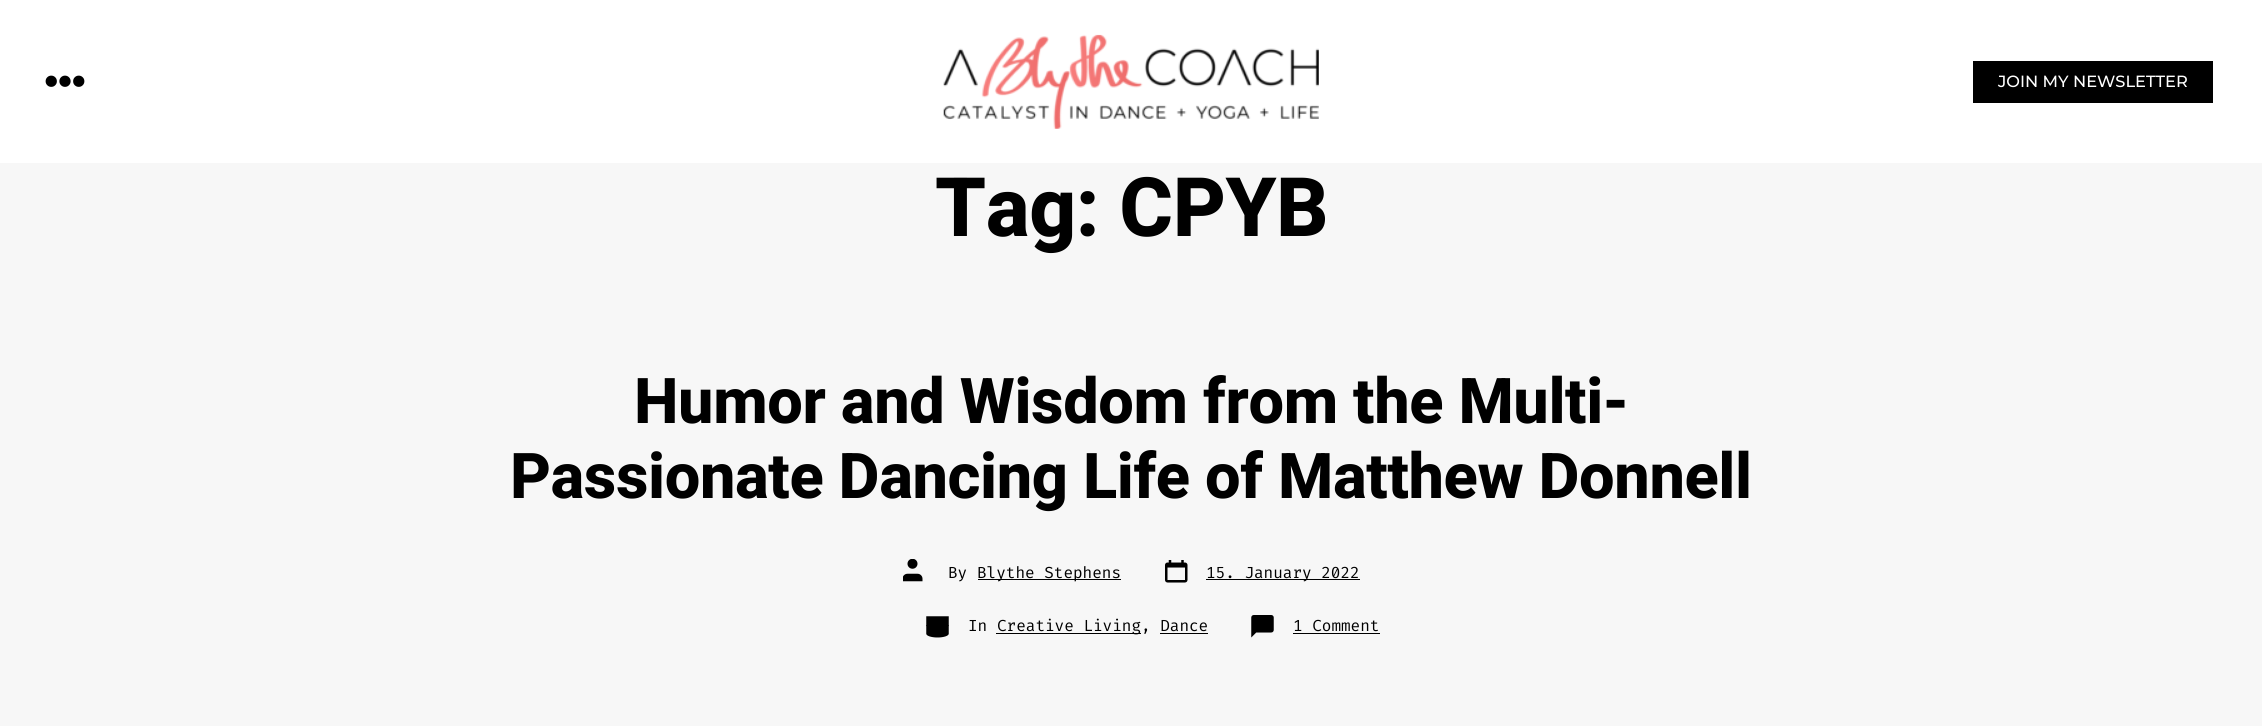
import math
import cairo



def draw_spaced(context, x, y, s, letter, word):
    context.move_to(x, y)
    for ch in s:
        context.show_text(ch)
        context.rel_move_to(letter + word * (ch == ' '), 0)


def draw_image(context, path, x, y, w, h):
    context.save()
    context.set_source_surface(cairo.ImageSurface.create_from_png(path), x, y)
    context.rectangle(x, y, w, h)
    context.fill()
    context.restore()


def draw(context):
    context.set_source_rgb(247 / 255, 247 / 255, 247 / 255)
    context.paint()
    context.set_source_rgb(1, 1, 1)
    context.rectangle(0, 0, 2262, 163)
    context.fill()
    draw_image(context, "images/1.png", 45, 75, 40, 12)
    draw_image(context, "images/2.png", 943, 34, 376, 95)
    context.set_source_rgb(0, 0, 0)
    context.rectangle(1973, 61, 240, 42)
    context.fill()
    draw_image(context, "images/3.png", 903, 559, 20, 23)
    context.rectangle(978, 579, 143, 1)
    context.fill()
    draw_image(context, "images/4.png", 1165, 560, 23, 23)
    context.rectangle(1206, 579, 154, 1)
    context.fill()
    draw_image(context, "images/5.png", 926, 616, 23, 22)
    context.rectangle(996, 633, 145, 1)
    context.fill()
    context.rectangle(1160, 633, 48, 1)
    context.fill()
    draw_image(context, "images/6.png", 1251, 615, 23, 23)
    context.rectangle(1293, 633, 87, 1)
    context.fill()
    context.select_font_face("Montserrat Medium")
    context.set_font_size(16.25)
    context.set_source_rgb(1, 1, 1)
    context.move_to(1998, 87)
    context.show_text("JOIN MY NEWSLETTER")
    context.select_font_face("Heebo ExtraBold")
    context.set_font_size(82)
    context.set_source_rgb(0, 0, 0)
    draw_spaced(context, 935, 236, "Tag: CPYB", -0.4, 0)
    context.set_font_size(63.1)
    draw_spaced(context, 634, 423, "Humor and Wisdom from the Multi-", -0.4, 0)
    draw_spaced(context, 510, 498, "Passionate Dancing Life of Matthew Donnell", -0.4, 0)
    context.select_font_face("Fira Code")
    context.set_font_size(16)
    context.move_to(948, 578)
    context.show_text("By")
    context.move_to(977, 578)
    context.show_text("Blythe Stephens")
    context.move_to(1206, 578)
    context.show_text("15. January 2022")
    context.move_to(968, 631)
    context.show_text("In")
    context.move_to(997, 631)
    context.show_text("Creative Living, Dance")
    context.move_to(1293, 631)
    context.show_text("1 Comment")


surface = cairo.ImageSurface(cairo.Format.RGB24, 2262, 726)
context = cairo.Context(surface)
options = cairo.FontOptions()
options.set_hint_metrics(cairo.HintMetrics.OFF)
options.set_hint_style(cairo.HintStyle.NONE)
context.set_font_options(options)
context.set_miter_limit(4)
draw(context)
surface.write_to_png("out.png")
